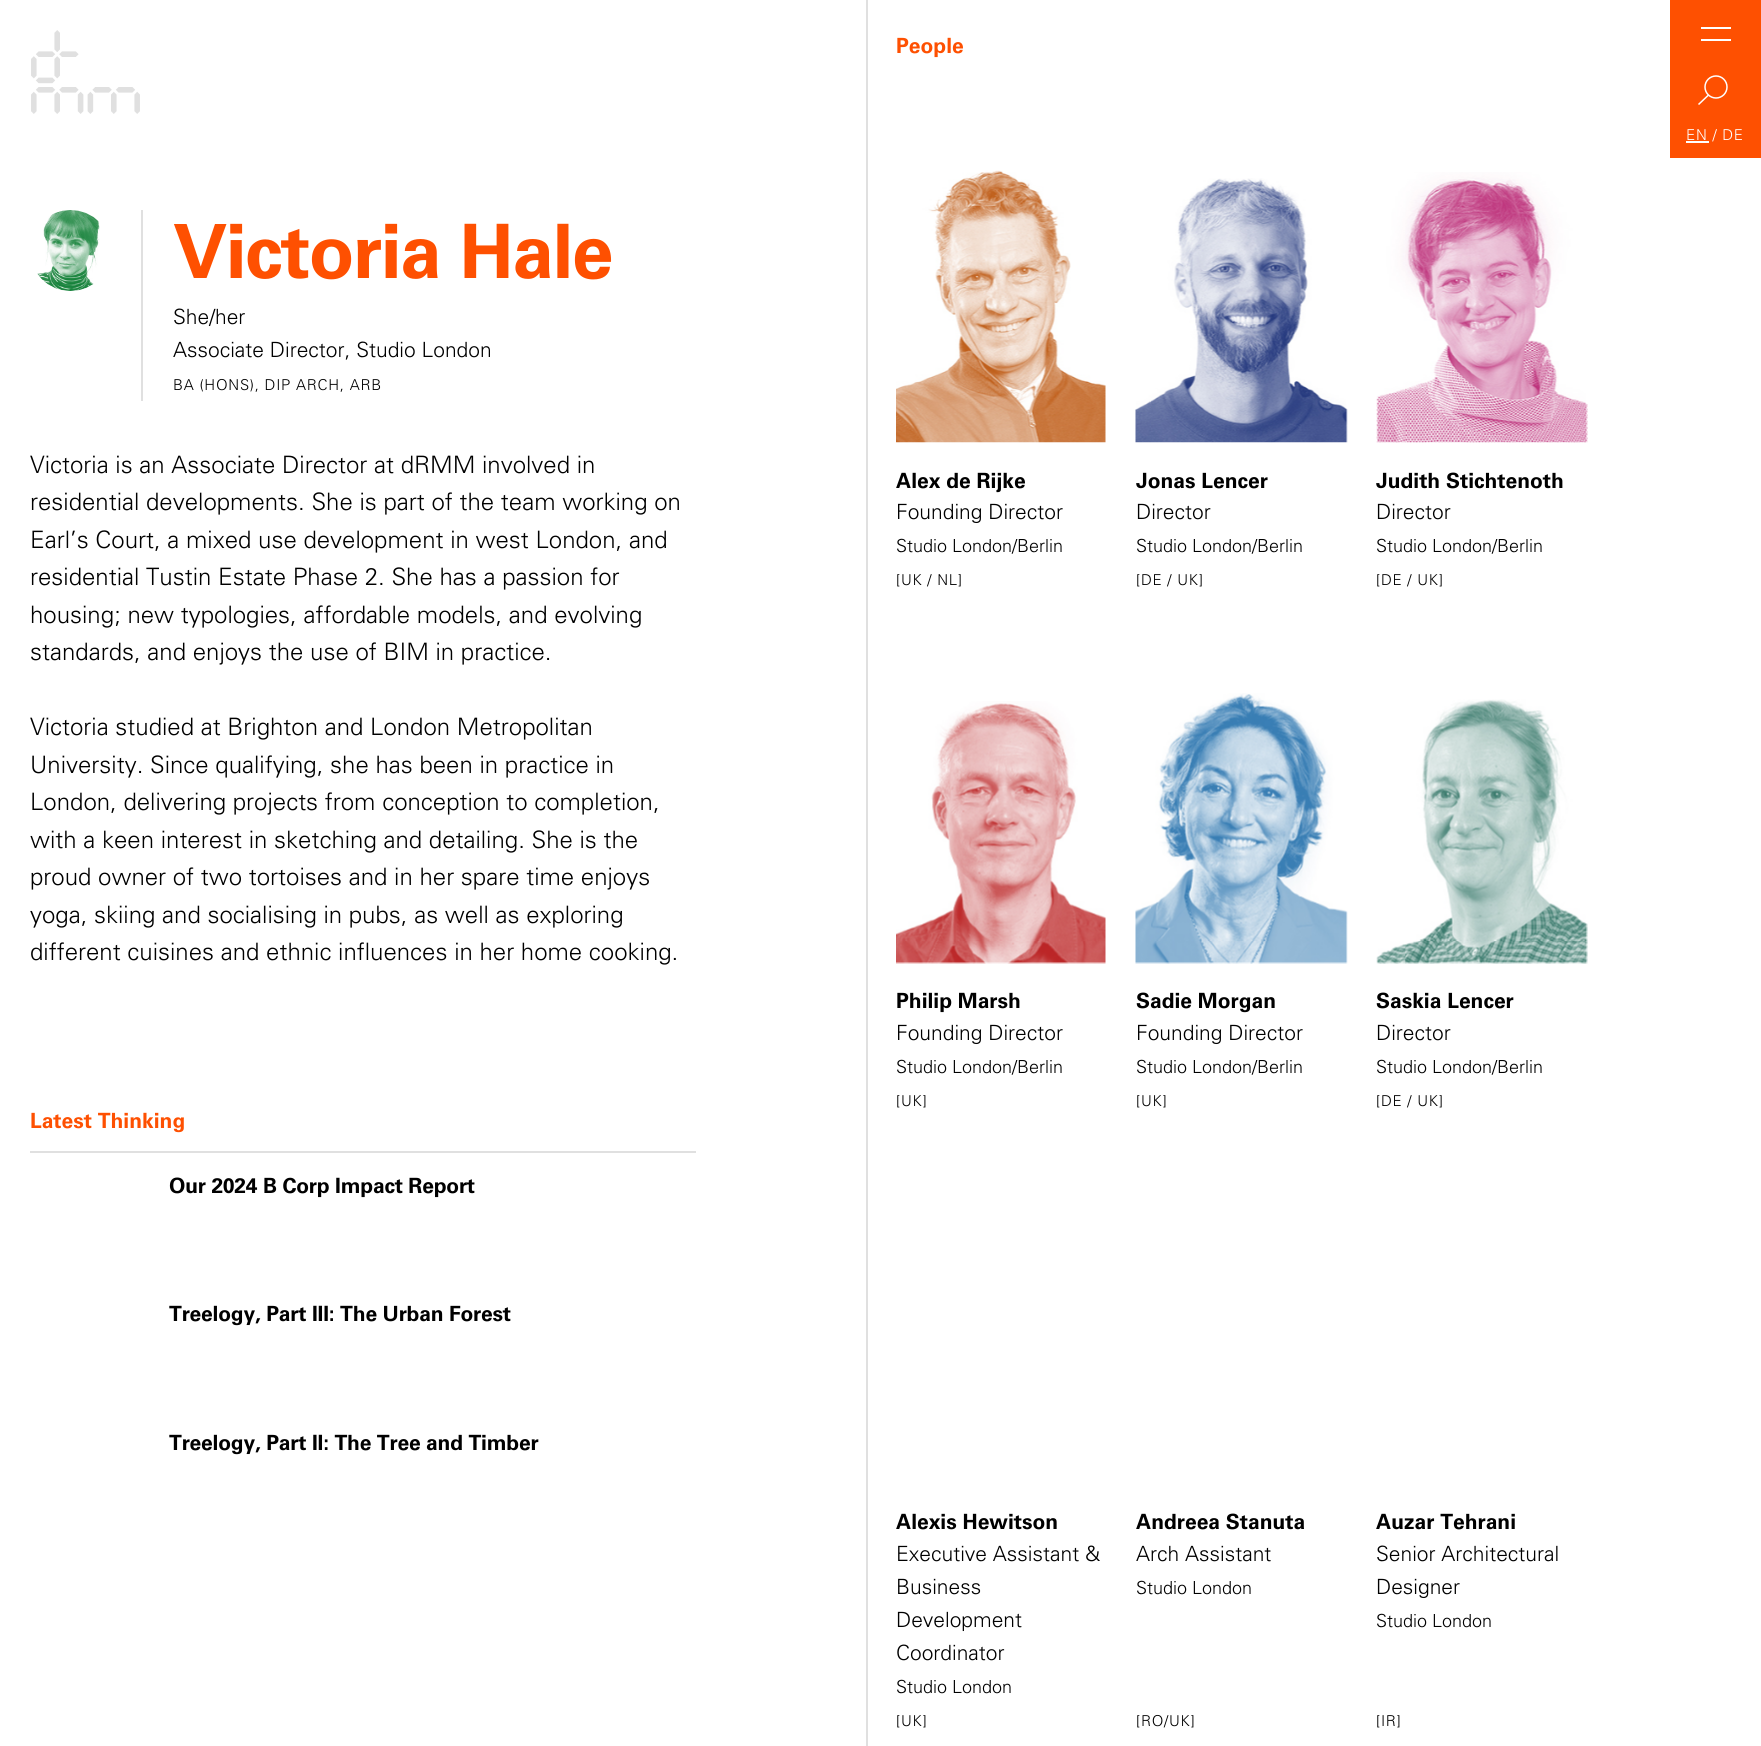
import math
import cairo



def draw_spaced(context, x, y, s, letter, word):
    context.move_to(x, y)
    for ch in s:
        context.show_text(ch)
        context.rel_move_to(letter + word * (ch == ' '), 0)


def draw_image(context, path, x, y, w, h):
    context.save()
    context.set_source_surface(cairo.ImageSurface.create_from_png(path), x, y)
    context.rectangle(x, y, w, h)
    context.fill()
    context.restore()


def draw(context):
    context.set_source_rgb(1, 1, 1)
    context.paint()
    context.set_source_rgb(224 / 255, 224 / 255, 224 / 255)
    context.rectangle(141, 210, 2, 191)
    context.fill()
    draw_image(context, "images/1.png", 37, 210, 63, 81)
    context.rectangle(30, 1151, 666, 2)
    context.fill()
    context.rectangle(866, 0, 2, 1746)
    context.fill()
    draw_image(context, "images/2.png", 896, 170, 210, 273)
    draw_image(context, "images/3.png", 1135, 178, 213, 265)
    draw_image(context, "images/4.png", 1376, 172, 212, 271)
    draw_image(context, "images/5.png", 896, 701, 210, 263)
    draw_image(context, "images/6.png", 1135, 693, 213, 271)
    draw_image(context, "images/7.png", 1376, 699, 212, 265)
    draw_image(context, "images/8.png", 31, 30, 109, 84)
    context.set_source_rgb(254 / 255, 80 / 255, 1 / 255)
    context.rectangle(1670, 0, 91, 158)
    context.fill()
    context.set_source_rgb(1, 1, 1)
    context.rectangle(1701, 27, 30, 2)
    context.fill()
    context.rectangle(1701, 39, 30, 2)
    context.fill()
    context.new_path()
    context.move_to(1698.5, 104.5)
    context.line_to(1708.5, 95)
    context.set_line_width(1.5)
    context.stroke()
    context.arc(1716, 87, 11, 0, 2 * math.pi)
    context.stroke()
    context.rectangle(1686, 141, 23, 2)
    context.fill()
    context.select_font_face("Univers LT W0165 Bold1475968", cairo.FontSlant.NORMAL, cairo.FontWeight.BOLD)
    context.set_font_size(75)
    context.set_source_rgb(254 / 255, 80 / 255, 1 / 255)
    draw_spaced(context, 173, 278, "Victoria Hale", -1.5, 0)
    context.select_font_face("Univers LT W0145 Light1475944 Light")
    context.set_font_size(21)
    context.set_source_rgb(0, 0, 0)
    context.move_to(173, 324)
    context.show_text("She/her")
    context.move_to(173, 357)
    context.show_text("Associate Director, Studio London")
    context.set_font_size(15)
    draw_spaced(context, 173, 390, "BA (HONS), DIP ARCH, ARB", 0.75, 0)
    context.set_font_size(24)
    context.move_to(30, 473)
    context.show_text("Victoria is an Associate Director at dRMM involved in")
    context.move_to(30, 510)
    context.show_text("residential developments. She is part of the team working on")
    context.move_to(30, 548)
    context.show_text("Earl’s Court, a mixed use development in west London, and")
    context.move_to(30, 585)
    context.show_text("residential Tustin Estate Phase 2. She has a passion for")
    context.move_to(30, 623)
    context.show_text("housing; new typologies, affordable models, and evolving")
    context.move_to(30, 660)
    context.show_text("standards, and enjoys the use of BIM in practice.")
    context.move_to(30, 735)
    context.show_text("Victoria studied at Brighton and London Metropolitan")
    context.move_to(30, 773)
    context.show_text("University. Since qualifying, she has been in practice in")
    context.move_to(30, 810)
    context.show_text("London, delivering projects from conception to completion,")
    context.move_to(30, 848)
    context.show_text("with a keen interest in sketching and detailing. She is the")
    context.move_to(30, 885)
    context.show_text("proud owner of two tortoises and in her spare time enjoys")
    context.move_to(30, 923)
    context.show_text("yoga, skiing and socialising in pubs, as well as exploring")
    context.move_to(30, 960)
    context.show_text("different cuisines and ethnic influences in her home cooking.")
    context.select_font_face("Univers LT W0165 Bold1475968", cairo.FontSlant.NORMAL, cairo.FontWeight.BOLD)
    context.set_font_size(21)
    context.set_source_rgb(254 / 255, 80 / 255, 1 / 255)
    context.move_to(30, 1128)
    context.show_text("Latest Thinking")
    context.set_source_rgb(0, 0, 0)
    draw_spaced(context, 169, 1193, "Our 2024 B Corp Impact Report", -0.2, 0)
    draw_spaced(context, 169, 1321, "Treelogy, Part III: The Urban Forest", -0.2, 0)
    draw_spaced(context, 169, 1450, "Treelogy, Part II: The Tree and Timber", -0.2, 0)
    context.set_source_rgb(254 / 255, 80 / 255, 1 / 255)
    context.move_to(896, 53)
    context.show_text("People")
    context.set_source_rgb(0, 0, 0)
    context.move_to(896, 488)
    context.show_text("Alex de Rijke")
    context.select_font_face("Univers LT W0145 Light1475944 Light")
    context.move_to(896, 519)
    context.show_text("Founding Director")
    context.set_font_size(18)
    context.move_to(896, 552)
    context.show_text("Studio London/Berlin")
    context.set_font_size(15)
    draw_spaced(context, 896, 585, "[UK / NL]", 0.75, 0)
    context.select_font_face("Univers LT W0165 Bold1475968", cairo.FontSlant.NORMAL, cairo.FontWeight.BOLD)
    context.set_font_size(21)
    context.move_to(1136, 488)
    context.show_text("Jonas Lencer")
    context.select_font_face("Univers LT W0145 Light1475944 Light")
    context.move_to(1136, 519)
    context.show_text("Director")
    context.set_font_size(18)
    context.move_to(1136, 552)
    context.show_text("Studio London/Berlin")
    context.set_font_size(15)
    draw_spaced(context, 1136, 585, "[DE / UK]", 0.75, 0)
    context.select_font_face("Univers LT W0165 Bold1475968", cairo.FontSlant.NORMAL, cairo.FontWeight.BOLD)
    context.set_font_size(21)
    context.move_to(1376, 488)
    context.show_text("Judith Stichtenoth")
    context.select_font_face("Univers LT W0145 Light1475944 Light")
    context.move_to(1376, 519)
    context.show_text("Director")
    context.set_font_size(18)
    context.move_to(1376, 552)
    context.show_text("Studio London/Berlin")
    context.set_font_size(15)
    draw_spaced(context, 1376, 585, "[DE / UK]", 0.75, 0)
    context.select_font_face("Univers LT W0165 Bold1475968", cairo.FontSlant.NORMAL, cairo.FontWeight.BOLD)
    context.set_font_size(21)
    context.move_to(896, 1008)
    context.show_text("Philip Marsh")
    context.select_font_face("Univers LT W0145 Light1475944 Light")
    context.move_to(896, 1040)
    context.show_text("Founding Director")
    context.set_font_size(18)
    context.move_to(896, 1073)
    context.show_text("Studio London/Berlin")
    context.set_font_size(15)
    draw_spaced(context, 896, 1106, "[UK]", 0.75, 0)
    context.select_font_face("Univers LT W0165 Bold1475968", cairo.FontSlant.NORMAL, cairo.FontWeight.BOLD)
    context.set_font_size(21)
    context.move_to(1136, 1008)
    context.show_text("Sadie Morgan")
    context.select_font_face("Univers LT W0145 Light1475944 Light")
    context.move_to(1136, 1040)
    context.show_text("Founding Director")
    context.set_font_size(18)
    context.move_to(1136, 1073)
    context.show_text("Studio London/Berlin")
    context.set_font_size(15)
    draw_spaced(context, 1136, 1106, "[UK]", 0.75, 0)
    context.select_font_face("Univers LT W0165 Bold1475968", cairo.FontSlant.NORMAL, cairo.FontWeight.BOLD)
    context.set_font_size(21)
    context.move_to(1376, 1008)
    context.show_text("Saskia Lencer")
    context.select_font_face("Univers LT W0145 Light1475944 Light")
    context.move_to(1376, 1040)
    context.show_text("Director")
    context.set_font_size(18)
    context.move_to(1376, 1073)
    context.show_text("Studio London/Berlin")
    context.set_font_size(15)
    draw_spaced(context, 1376, 1106, "[DE / UK]", 0.75, 0)
    context.select_font_face("Univers LT W0165 Bold1475968", cairo.FontSlant.NORMAL, cairo.FontWeight.BOLD)
    context.set_font_size(21)
    context.move_to(896, 1529)
    context.show_text("Alexis Hewitson")
    context.select_font_face("Univers LT W0145 Light1475944 Light")
    context.move_to(896, 1561)
    context.show_text("Executive Assistant &")
    context.move_to(896, 1594)
    context.show_text("Business")
    context.move_to(896, 1627)
    context.show_text("Development")
    context.move_to(896, 1660)
    context.show_text("Coordinator")
    context.set_font_size(18)
    context.move_to(896, 1693)
    context.show_text("Studio London")
    context.set_font_size(15)
    draw_spaced(context, 896, 1726, "[UK]", 0.75, 0)
    context.select_font_face("Univers LT W0165 Bold1475968", cairo.FontSlant.NORMAL, cairo.FontWeight.BOLD)
    context.set_font_size(21)
    context.move_to(1136, 1529)
    context.show_text("Andreea Stanuta")
    context.select_font_face("Univers LT W0145 Light1475944 Light")
    context.move_to(1136, 1561)
    context.show_text("Arch Assistant")
    context.set_font_size(18)
    context.move_to(1136, 1594)
    context.show_text("Studio London")
    context.set_font_size(15)
    draw_spaced(context, 1136, 1726, "[RO/UK]", 0.75, 0)
    context.select_font_face("Univers LT W0165 Bold1475968", cairo.FontSlant.NORMAL, cairo.FontWeight.BOLD)
    context.set_font_size(21)
    context.move_to(1376, 1529)
    context.show_text("Auzar Tehrani")
    context.select_font_face("Univers LT W0145 Light1475944 Light")
    context.move_to(1376, 1561)
    context.show_text("Senior Architectural")
    context.move_to(1376, 1594)
    context.show_text("Designer")
    context.set_font_size(18)
    context.move_to(1376, 1627)
    context.show_text("Studio London")
    context.set_font_size(15)
    draw_spaced(context, 1376, 1726, "[IR]", 0.75, 0)
    context.set_source_rgb(1, 1, 1)
    draw_spaced(context, 1686, 140, "EN / DE", 0.75, 0)


surface = cairo.ImageSurface(cairo.Format.RGB24, 1761, 1746)
context = cairo.Context(surface)
options = cairo.FontOptions()
options.set_hint_metrics(cairo.HintMetrics.OFF)
options.set_hint_style(cairo.HintStyle.NONE)
context.set_font_options(options)
context.set_miter_limit(4)
draw(context)
surface.write_to_png("out.png")
